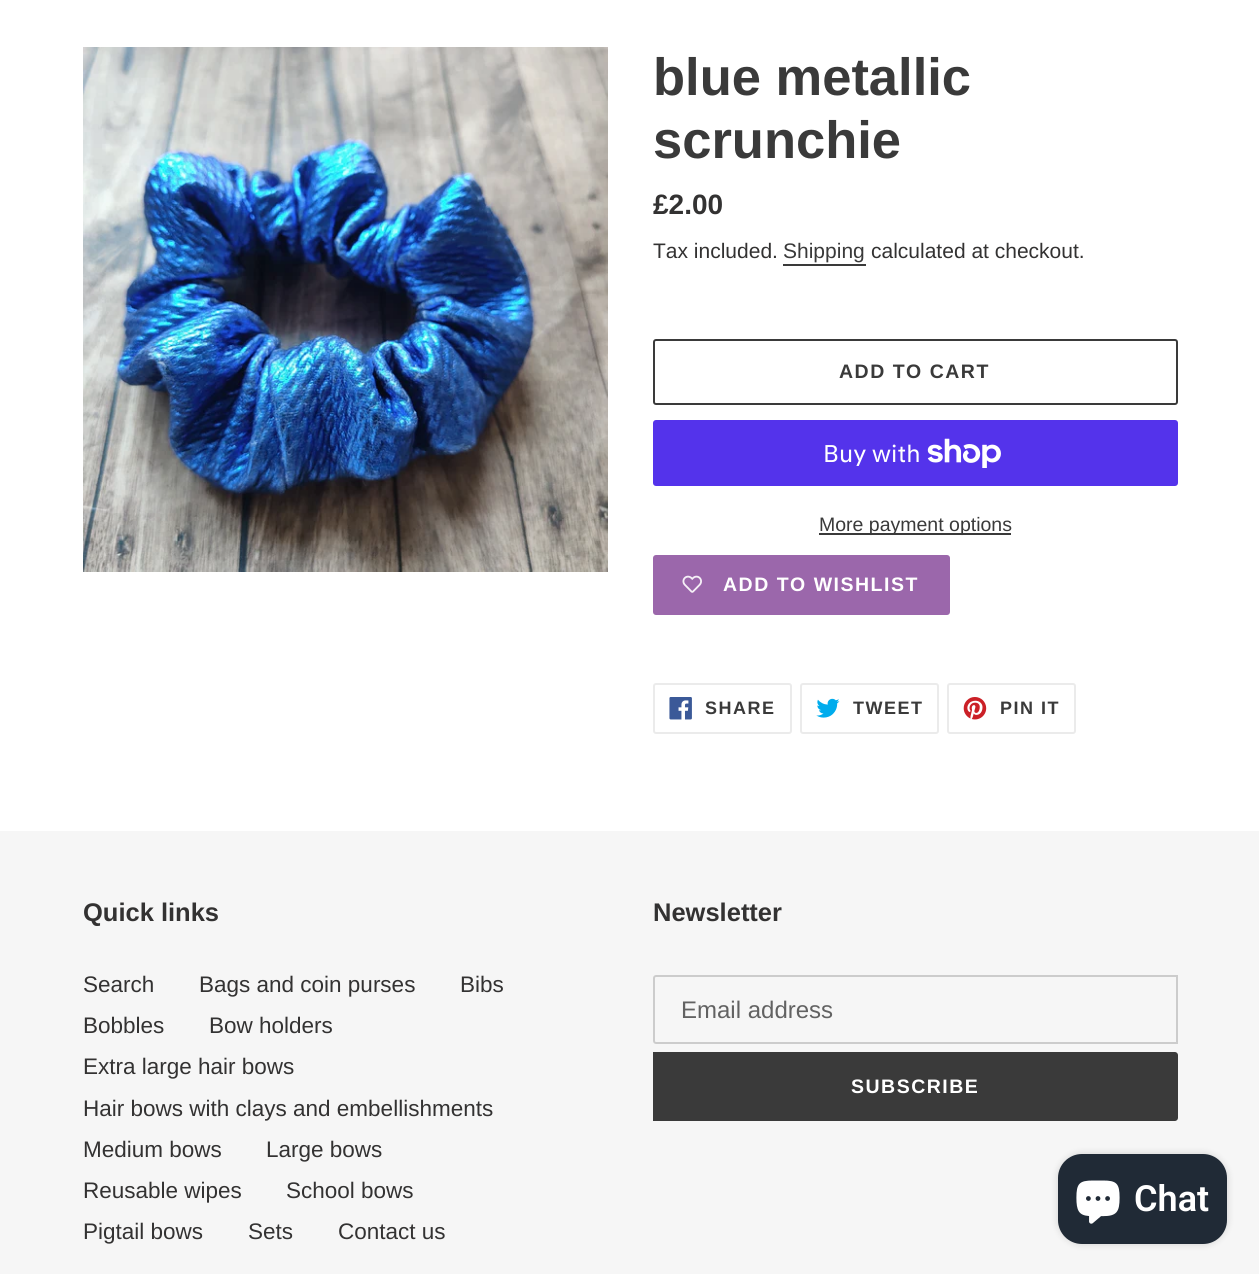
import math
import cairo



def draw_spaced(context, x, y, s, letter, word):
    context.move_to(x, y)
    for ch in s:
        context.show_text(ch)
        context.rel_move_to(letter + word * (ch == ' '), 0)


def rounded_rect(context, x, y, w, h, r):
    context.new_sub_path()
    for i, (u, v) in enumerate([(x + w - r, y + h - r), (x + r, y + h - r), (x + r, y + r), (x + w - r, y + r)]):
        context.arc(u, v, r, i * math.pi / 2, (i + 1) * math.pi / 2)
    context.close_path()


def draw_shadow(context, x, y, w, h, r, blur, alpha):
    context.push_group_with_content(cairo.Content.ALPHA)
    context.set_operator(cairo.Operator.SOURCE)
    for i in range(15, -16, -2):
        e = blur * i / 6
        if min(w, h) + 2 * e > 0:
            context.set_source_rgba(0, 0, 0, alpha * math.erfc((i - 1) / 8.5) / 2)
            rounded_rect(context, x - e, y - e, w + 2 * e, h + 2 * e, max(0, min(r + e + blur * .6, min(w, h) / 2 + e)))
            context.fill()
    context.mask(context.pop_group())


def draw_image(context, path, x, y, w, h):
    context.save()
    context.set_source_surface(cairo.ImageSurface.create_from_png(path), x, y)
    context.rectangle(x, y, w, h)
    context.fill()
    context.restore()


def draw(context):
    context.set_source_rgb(1, 1, 1)
    context.paint()
    draw_image(context, "images/1.png", 83, 47, 525, 525)
    context.set_source_rgb(58 / 255, 58 / 255, 58 / 255)
    context.rectangle(783, 264, 83, 2)
    context.fill()
    rounded_rect(context, 654, 340, 523, 64, 2)
    context.stroke()
    context.set_source_rgb(84 / 255, 51 / 255, 235 / 255)
    rounded_rect(context, 653, 420, 525, 66, 3)
    context.fill()
    draw_image(context, "images/2.png", 927, 438, 74, 30)
    context.set_source_rgb(58 / 255, 58 / 255, 58 / 255)
    context.rectangle(819, 533, 192, 2)
    context.fill()
    context.set_source_rgb(155 / 255, 103 / 255, 171 / 255)
    rounded_rect(context, 653, 555, 297, 60, 3)
    context.fill()
    draw_image(context, "images/3.png", 682, 575, 20, 18)
    rounded_rect(context, 654, 684, 137, 49, 2)
    context.set_source_rgb(235 / 255, 235 / 255, 235 / 255)
    context.stroke()
    draw_image(context, "images/4.png", 669, 697, 23, 23)
    rounded_rect(context, 801, 684, 137, 49, 2)
    context.stroke()
    draw_image(context, "images/5.png", 816, 698, 24, 20)
    rounded_rect(context, 948, 684, 127, 49, 2)
    context.stroke()
    draw_image(context, "images/6.png", 963, 697, 24, 23)
    context.set_source_rgb(246 / 255, 246 / 255, 246 / 255)
    context.rectangle(0, 831, 1259, 443)
    context.fill()
    context.new_path()
    context.move_to(656, 976)
    context.line_to(1177, 976)
    context.line_to(1177, 1043)
    context.line_to(656, 1043)
    context.curve_to(655, 1043, 654, 1042, 654, 1041)
    context.line_to(654, 978)
    context.curve_to(654, 977, 655, 976, 656, 976)
    context.close_path()
    context.set_source_rgb(204 / 255, 204 / 255, 204 / 255)
    context.stroke()
    context.set_source_rgb(58 / 255, 58 / 255, 58 / 255)
    context.new_path()
    context.move_to(653, 1052)
    context.line_to(1175, 1052)
    context.curve_to(1176.5, 1052, 1178, 1053.5, 1178, 1055)
    context.line_to(1178, 1118)
    context.curve_to(1178, 1119.5, 1176.5, 1121, 1175, 1121)
    context.line_to(653, 1121)
    context.close_path()
    context.fill()
    context.set_source_rgb(0, 0, 0)
    draw_shadow(context, 1058, 1154, 169, 90, 24, 4, 0.15)
    context.set_source_rgb(32 / 255, 42 / 255, 54 / 255)
    rounded_rect(context, 1058, 1154, 169, 90, 24)
    context.fill()
    draw_image(context, "images/7.png", 1076, 1180, 44, 44)
    context.select_font_face("Liberation Sans", cairo.FontSlant.NORMAL, cairo.FontWeight.BOLD)
    context.set_font_size(52.5)
    context.set_source_rgb(58 / 255, 58 / 255, 58 / 255)
    context.move_to(653, 95)
    context.show_text("blue metallic")
    context.move_to(653, 158)
    context.show_text("scrunchie")
    context.set_font_size(28)
    context.set_source_rgb(51 / 255, 50 / 255, 50 / 255)
    context.move_to(653, 214)
    context.show_text("£2.00")
    context.select_font_face("Liberation Sans")
    context.set_font_size(21)
    context.move_to(653, 258)
    context.show_text("Tax included.")
    context.set_source_rgb(58 / 255, 58 / 255, 58 / 255)
    context.move_to(783, 258)
    context.show_text("Shipping")
    context.set_source_rgb(51 / 255, 50 / 255, 50 / 255)
    context.move_to(871, 258)
    context.show_text("calculated at checkout.")
    context.select_font_face("Liberation Sans", cairo.FontSlant.NORMAL, cairo.FontWeight.BOLD)
    context.set_font_size(19.5)
    context.set_source_rgb(58 / 255, 58 / 255, 58 / 255)
    draw_spaced(context, 839, 378, "ADD TO CART", 1.5, 0)
    context.select_font_face("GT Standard")
    context.set_font_size(24)
    context.set_source_rgb(1, 1, 1)
    context.move_to(823, 462)
    context.show_text("Buy with")
    context.select_font_face("Liberation Sans")
    context.set_font_size(19.5)
    context.set_source_rgb(58 / 255, 58 / 255, 58 / 255)
    context.move_to(819, 531)
    context.show_text("More payment options")
    context.select_font_face("Liberation Sans", cairo.FontSlant.NORMAL, cairo.FontWeight.BOLD)
    context.set_source_rgb(1, 1, 1)
    draw_spaced(context, 723, 591, "ADD TO WISHLIST", 1.5, 0)
    context.set_font_size(18)
    context.set_source_rgb(58 / 255, 58 / 255, 58 / 255)
    draw_spaced(context, 705, 714, "SHARE", 1.5, 0)
    draw_spaced(context, 853, 714, "TWEET", 1.5, 0)
    draw_spaced(context, 1000, 714, "PIN IT", 1.5, 0)
    context.set_font_size(25.5)
    context.set_source_rgb(51 / 255, 50 / 255, 50 / 255)
    context.move_to(83, 921)
    context.show_text("Quick links")
    context.select_font_face("Liberation Sans")
    context.set_font_size(22.5)
    context.move_to(83, 992)
    context.show_text("Search")
    context.move_to(199, 992)
    context.show_text("Bags and coin purses")
    context.move_to(460, 992)
    context.show_text("Bibs")
    context.move_to(83, 1033)
    context.show_text("Bobbles")
    context.move_to(209, 1033)
    context.show_text("Bow holders")
    context.move_to(83, 1074)
    context.show_text("Extra large hair bows")
    context.move_to(83, 1116)
    context.show_text("Hair bows with clays and embellishments")
    context.move_to(83, 1157)
    context.show_text("Medium bows")
    context.move_to(266, 1157)
    context.show_text("Large bows")
    context.move_to(83, 1198)
    context.show_text("Reusable wipes")
    context.move_to(286, 1198)
    context.show_text("School bows")
    context.move_to(83, 1239)
    context.show_text("Pigtail bows")
    context.move_to(248, 1239)
    context.show_text("Sets")
    context.move_to(338, 1239)
    context.show_text("Contact us")
    context.select_font_face("Liberation Sans", cairo.FontSlant.NORMAL, cairo.FontWeight.BOLD)
    context.set_font_size(25.5)
    context.move_to(653, 921)
    context.show_text("Newsletter")
    context.select_font_face("Liberation Sans")
    context.set_font_size(24)
    context.set_source_rgb(98 / 255, 98 / 255, 98 / 255)
    context.move_to(681, 1018)
    context.show_text("Email address")
    context.select_font_face("Liberation Sans", cairo.FontSlant.NORMAL, cairo.FontWeight.BOLD)
    context.set_font_size(19.5)
    context.set_source_rgb(1, 1, 1)
    draw_spaced(context, 851, 1093, "SUBSCRIBE", 1.5, 0)
    context.select_font_face("Roboto SemiBold")
    context.set_font_size(36)
    context.move_to(1134, 1211)
    context.show_text("Chat")


surface = cairo.ImageSurface(cairo.Format.RGB24, 1259, 1274)
context = cairo.Context(surface)
options = cairo.FontOptions()
options.set_hint_metrics(cairo.HintMetrics.OFF)
options.set_hint_style(cairo.HintStyle.NONE)
context.set_font_options(options)
context.set_miter_limit(4)
draw(context)
surface.write_to_png("out.png")
